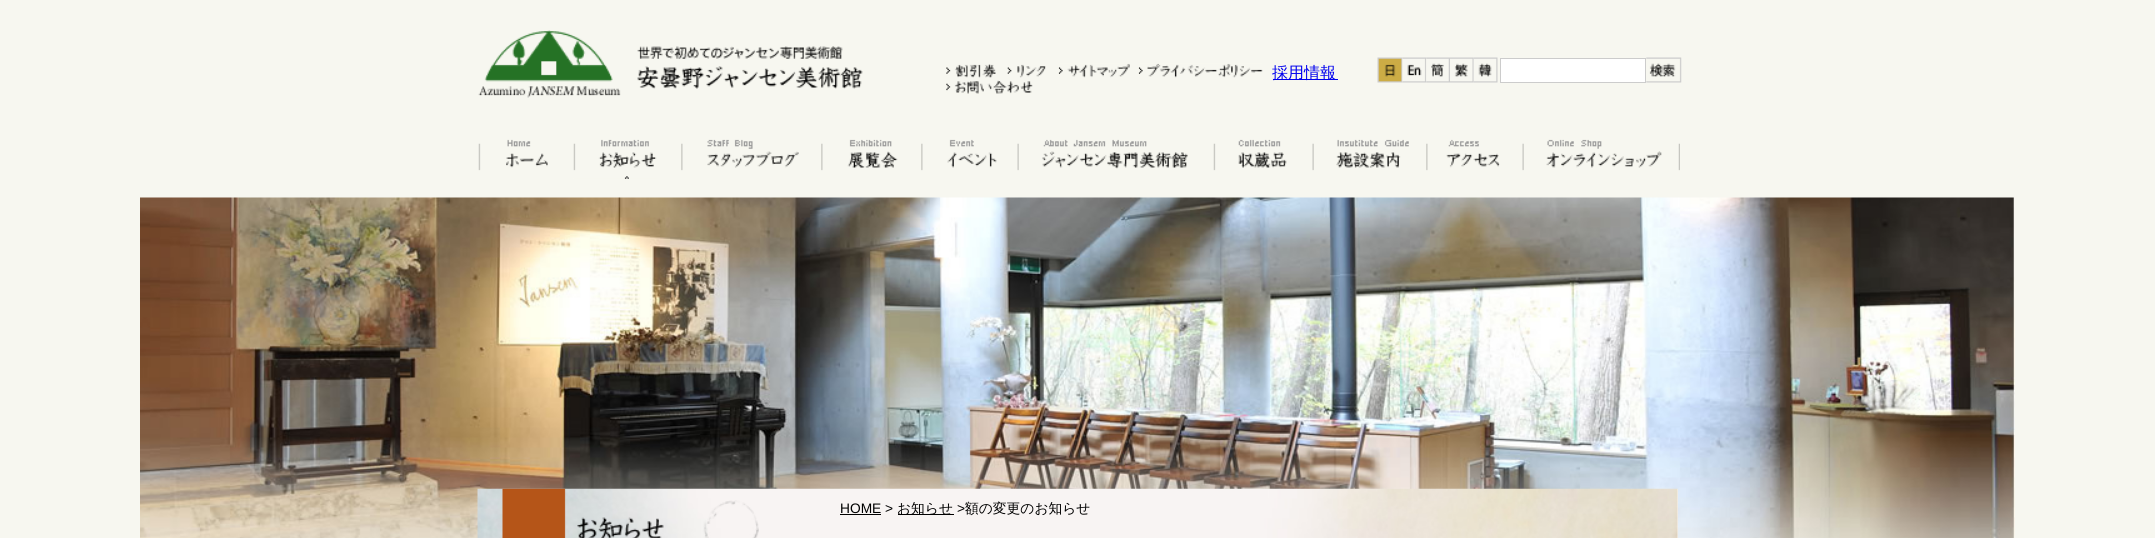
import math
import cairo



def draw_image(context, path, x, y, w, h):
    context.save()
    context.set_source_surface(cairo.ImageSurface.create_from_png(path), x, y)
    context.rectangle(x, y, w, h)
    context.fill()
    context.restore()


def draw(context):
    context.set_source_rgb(247 / 255, 247 / 255, 240 / 255)
    context.paint()
    draw_image(context, "images/1.png", 478, 30, 385, 68)
    draw_image(context, "images/2.png", 946, 64, 50, 14)
    draw_image(context, "images/3.png", 1007, 64, 39, 14)
    draw_image(context, "images/4.png", 1058, 63, 72, 15)
    draw_image(context, "images/5.png", 1138, 63, 125, 15)
    context.set_source_rgb(0, 0, 238 / 255)
    context.rectangle(1273, 79, 65, 1)
    context.fill()
    draw_image(context, "images/6.png", 946, 80, 87, 14)
    draw_image(context, "images/7.png", 1377, 57, 26, 26)
    draw_image(context, "images/8.png", 1402, 57, 25, 26)
    draw_image(context, "images/9.png", 1426, 57, 24, 26)
    draw_image(context, "images/10.png", 1450, 57, 24, 26)
    draw_image(context, "images/11.png", 1473, 57, 25, 26)
    context.set_source_rgb(1, 1, 1)
    context.rectangle(1500.5, 58.5, 145, 24)
    context.fill_preserve()
    context.set_source_rgb(204 / 255, 204 / 255, 204 / 255)
    context.set_line_width(1)
    context.stroke()
    draw_image(context, "images/12.png", 1646, 57, 36, 26)
    draw_image(context, "images/13.png", 478, 139, 70, 32)
    draw_image(context, "images/14.png", 573, 139, 84, 40)
    draw_image(context, "images/15.png", 681, 139, 118, 32)
    draw_image(context, "images/16.png", 821, 139, 77, 32)
    draw_image(context, "images/17.png", 921, 139, 76, 32)
    draw_image(context, "images/18.png", 1017, 139, 171, 32)
    draw_image(context, "images/19.png", 1213, 139, 74, 32)
    draw_image(context, "images/20.png", 1312, 139, 97, 32)
    draw_image(context, "images/21.png", 1426, 139, 74, 32)
    draw_image(context, "images/22.png", 1522, 139, 158, 32)
    draw_image(context, "images/23.png", 140, 197, 1875, 341)
    context.set_source_rgb(248 / 255, 244 / 255, 243 / 255)
    context.rectangle(1677, 489, 1, 49)
    context.fill()
    draw_image(context, "images/24.png", 477, 488, 1201, 50)
    draw_image(context, "images/25.png", 502, 488, 257, 50)
    context.set_source_rgb(0, 0, 0)
    context.rectangle(840, 514, 41, 1)
    context.fill()
    context.rectangle(898, 514, 56, 1)
    context.fill()
    context.select_font_face("WenQuanYi Zen Hei Medium")
    context.set_font_size(16)
    context.set_source_rgb(0, 0, 238 / 255)
    context.move_to(1272, 78)
    context.show_text("採用情報")
    context.select_font_face("Liberation Sans")
    context.set_font_size(13.75)
    context.set_source_rgb(0, 0, 0)
    context.move_to(840, 513)
    context.show_text("HOME >")
    context.select_font_face("WenQuanYi Zen Hei Medium")
    context.move_to(897, 513)
    context.show_text("お知らせ")
    context.select_font_face("Liberation Sans")
    context.move_to(957, 513)
    context.show_text(">")
    context.select_font_face("WenQuanYi Zen Hei Medium")
    context.move_to(965, 513)
    context.show_text("額の変更のお知らせ")


surface = cairo.ImageSurface(cairo.Format.RGB24, 2155, 538)
context = cairo.Context(surface)
options = cairo.FontOptions()
options.set_hint_metrics(cairo.HintMetrics.OFF)
options.set_hint_style(cairo.HintStyle.NONE)
context.set_font_options(options)
context.set_miter_limit(4)
draw(context)
surface.write_to_png("out.png")
